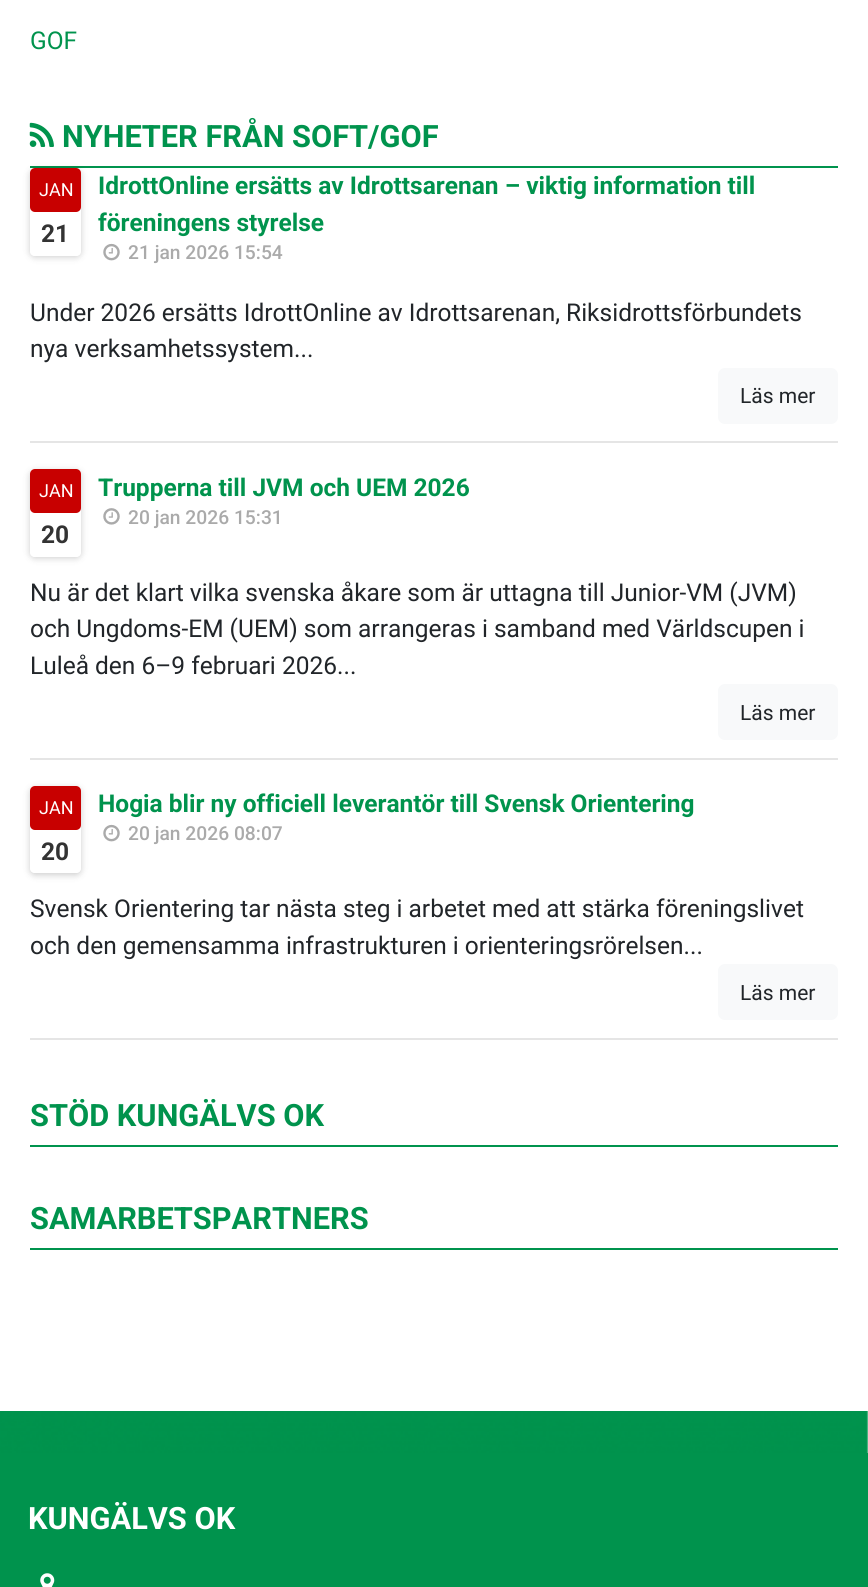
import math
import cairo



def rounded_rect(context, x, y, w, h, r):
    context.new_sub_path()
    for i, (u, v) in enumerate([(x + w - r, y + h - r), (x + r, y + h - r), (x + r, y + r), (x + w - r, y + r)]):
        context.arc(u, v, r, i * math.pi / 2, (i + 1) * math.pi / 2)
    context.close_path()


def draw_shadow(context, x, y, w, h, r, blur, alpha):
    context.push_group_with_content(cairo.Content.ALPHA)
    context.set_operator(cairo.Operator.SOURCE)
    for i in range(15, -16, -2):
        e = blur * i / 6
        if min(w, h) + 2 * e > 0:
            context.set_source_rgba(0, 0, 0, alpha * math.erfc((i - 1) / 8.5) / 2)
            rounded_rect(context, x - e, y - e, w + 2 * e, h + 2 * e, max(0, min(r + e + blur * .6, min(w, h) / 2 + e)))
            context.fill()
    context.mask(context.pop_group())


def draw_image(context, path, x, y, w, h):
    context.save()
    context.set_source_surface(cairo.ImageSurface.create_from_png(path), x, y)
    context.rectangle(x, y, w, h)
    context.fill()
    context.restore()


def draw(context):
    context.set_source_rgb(1, 1, 1)
    context.paint()
    draw_image(context, "images/1.png", 0, 1411, 868, 42)
    context.set_source_rgb(0, 147 / 255, 77 / 255)
    context.rectangle(30, 166, 808, 2)
    context.fill()
    draw_image(context, "images/2.png", 29, 122, 25, 25)
    context.set_source_rgb(229 / 255, 229 / 255, 229 / 255)
    context.rectangle(30, 441, 808, 2)
    context.fill()
    context.save()
    context.set_fill_rule(cairo.FillRule.EVEN_ODD)
    context.new_path()
    context.move_to(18, 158)
    context.line_to(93, 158)
    context.line_to(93, 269)
    context.line_to(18, 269)
    context.close_path()
    context.move_to(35, 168)
    context.line_to(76, 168)
    context.curve_to(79, 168, 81, 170, 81, 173)
    context.line_to(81, 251)
    context.curve_to(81, 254, 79, 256, 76, 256)
    context.line_to(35, 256)
    context.curve_to(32, 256, 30, 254, 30, 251)
    context.line_to(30, 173)
    context.curve_to(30, 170, 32, 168, 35, 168)
    context.close_path()
    context.clip()
    context.set_source_rgb(0, 0, 0)
    draw_shadow(context, 30, 170, 51, 87, 5, 3.5, 0.2)
    context.restore()
    context.set_source_rgb(200 / 255, 0, 0)
    rounded_rect(context, 30, 168, 51, 44, 5)
    context.fill()
    draw_image(context, "images/3.png", 103, 243, 17, 18)
    context.set_source_rgb(248 / 255, 249 / 255, 250 / 255)
    rounded_rect(context, 718, 368, 120, 56, 7)
    context.fill()
    context.set_source_rgb(229 / 255, 229 / 255, 229 / 255)
    context.rectangle(30, 758, 808, 2)
    context.fill()
    context.save()
    context.set_fill_rule(cairo.FillRule.EVEN_ODD)
    context.new_path()
    context.move_to(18, 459)
    context.line_to(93, 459)
    context.line_to(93, 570)
    context.line_to(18, 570)
    context.close_path()
    context.move_to(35, 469)
    context.line_to(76, 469)
    context.curve_to(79, 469, 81, 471, 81, 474)
    context.line_to(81, 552)
    context.curve_to(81, 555, 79, 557, 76, 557)
    context.line_to(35, 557)
    context.curve_to(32, 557, 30, 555, 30, 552)
    context.line_to(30, 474)
    context.curve_to(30, 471, 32, 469, 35, 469)
    context.close_path()
    context.clip()
    context.set_source_rgb(0, 0, 0)
    draw_shadow(context, 30, 471, 51, 87, 5, 3.5, 0.2)
    context.restore()
    context.set_source_rgb(200 / 255, 0, 0)
    rounded_rect(context, 30, 469, 51, 44, 5)
    context.fill()
    draw_image(context, "images/4.png", 103, 508, 17, 17)
    context.set_source_rgb(248 / 255, 249 / 255, 250 / 255)
    rounded_rect(context, 718, 684, 120, 56, 7)
    context.fill()
    context.set_source_rgb(229 / 255, 229 / 255, 229 / 255)
    context.rectangle(30, 1038, 808, 2)
    context.fill()
    context.save()
    context.set_fill_rule(cairo.FillRule.EVEN_ODD)
    context.new_path()
    context.move_to(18, 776)
    context.line_to(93, 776)
    context.line_to(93, 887)
    context.line_to(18, 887)
    context.close_path()
    context.move_to(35, 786)
    context.line_to(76, 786)
    context.curve_to(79, 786, 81, 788, 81, 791)
    context.line_to(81, 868)
    context.curve_to(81, 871, 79, 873, 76, 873)
    context.line_to(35, 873)
    context.curve_to(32, 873, 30, 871, 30, 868)
    context.line_to(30, 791)
    context.curve_to(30, 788, 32, 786, 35, 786)
    context.close_path()
    context.clip()
    context.set_source_rgb(0, 0, 0)
    draw_shadow(context, 30, 788, 51, 87, 5, 3.5, 0.2)
    context.restore()
    context.set_source_rgb(200 / 255, 0, 0)
    rounded_rect(context, 30, 786, 51, 44, 5)
    context.fill()
    draw_image(context, "images/3.png", 103, 824, 17, 18)
    context.set_source_rgb(248 / 255, 249 / 255, 250 / 255)
    rounded_rect(context, 718, 964, 120, 56, 7)
    context.fill()
    context.set_source_rgb(0, 147 / 255, 77 / 255)
    context.rectangle(30, 1145, 808, 2)
    context.fill()
    context.rectangle(30, 1248, 808, 2)
    context.fill()
    context.rectangle(0, 1453, 868, 134)
    context.fill()
    draw_image(context, "images/5.png", 40, 1573, 15, 14)
    context.select_font_face("Roboto")
    context.set_font_size(24.5)
    context.move_to(30, 49)
    context.show_text("GOF")
    context.select_font_face("Roboto", cairo.FontSlant.NORMAL, cairo.FontWeight.BOLD)
    context.set_font_size(30.75)
    context.move_to(62, 147)
    context.show_text("NYHETER FRÅN SOFT/GOF")
    context.select_font_face("Roboto")
    context.set_font_size(18)
    context.set_source_rgb(1, 1, 1)
    context.move_to(39, 196)
    context.show_text("JAN")
    context.select_font_face("Roboto", cairo.FontSlant.NORMAL, cairo.FontWeight.BOLD)
    context.set_font_size(24.5)
    context.set_source_rgb(51 / 255, 51 / 255, 51 / 255)
    context.move_to(41, 242)
    context.show_text("21")
    context.set_source_rgb(0, 147 / 255, 77 / 255)
    context.move_to(98, 194)
    context.show_text("IdrottOnline ersätts av Idrottsarenan – viktig information till")
    context.move_to(98, 231)
    context.show_text("föreningens styrelse")
    context.select_font_face("Roboto Medium")
    context.set_font_size(19.25)
    context.set_source_rgb(170 / 255, 170 / 255, 170 / 255)
    context.move_to(128, 259)
    context.show_text("21 jan 2026 15:54")
    context.select_font_face("Roboto")
    context.set_font_size(24.5)
    context.set_source_rgb(33 / 255, 37 / 255, 41 / 255)
    context.move_to(30, 321)
    context.show_text("Under 2026 ersätts IdrottOnline av Idrottsarenan, Riksidrottsförbundets")
    context.move_to(30, 357)
    context.show_text("nya verksamhetssystem...")
    context.set_font_size(21)
    context.move_to(740, 403)
    context.show_text("Läs mer")
    context.set_font_size(18)
    context.set_source_rgb(1, 1, 1)
    context.move_to(39, 497)
    context.show_text("JAN")
    context.select_font_face("Roboto", cairo.FontSlant.NORMAL, cairo.FontWeight.BOLD)
    context.set_font_size(24.5)
    context.set_source_rgb(51 / 255, 51 / 255, 51 / 255)
    context.move_to(41, 543)
    context.show_text("20")
    context.set_source_rgb(0, 147 / 255, 77 / 255)
    context.move_to(98, 496)
    context.show_text("Trupperna till JVM och UEM 2026")
    context.select_font_face("Roboto Medium")
    context.set_font_size(19.25)
    context.set_source_rgb(170 / 255, 170 / 255, 170 / 255)
    context.move_to(128, 524)
    context.show_text("20 jan 2026 15:31")
    context.select_font_face("Roboto")
    context.set_font_size(24.5)
    context.set_source_rgb(33 / 255, 37 / 255, 41 / 255)
    context.move_to(30, 601)
    context.show_text("Nu är det klart vilka svenska åkare som är uttagna till Junior-VM (JVM)")
    context.move_to(30, 637)
    context.show_text("och Ungdoms-EM (UEM) som arrangeras i samband med Världscupen i")
    context.move_to(30, 674)
    context.show_text("Luleå den 6–9 februari 2026...")
    context.set_font_size(21)
    context.move_to(740, 720)
    context.show_text("Läs mer")
    context.set_font_size(18)
    context.set_source_rgb(1, 1, 1)
    context.move_to(39, 814)
    context.show_text("JAN")
    context.select_font_face("Roboto", cairo.FontSlant.NORMAL, cairo.FontWeight.BOLD)
    context.set_font_size(24.5)
    context.set_source_rgb(51 / 255, 51 / 255, 51 / 255)
    context.move_to(41, 860)
    context.show_text("20")
    context.set_source_rgb(0, 147 / 255, 77 / 255)
    context.move_to(98, 812)
    context.show_text("Hogia blir ny officiell leverantör till Svensk Orientering")
    context.select_font_face("Roboto Medium")
    context.set_font_size(19.25)
    context.set_source_rgb(170 / 255, 170 / 255, 170 / 255)
    context.move_to(128, 840)
    context.show_text("20 jan 2026 08:07")
    context.select_font_face("Roboto")
    context.set_font_size(24.5)
    context.set_source_rgb(33 / 255, 37 / 255, 41 / 255)
    context.move_to(30, 917)
    context.show_text("Svensk Orientering tar nästa steg i arbetet med att stärka föreningslivet")
    context.move_to(30, 954)
    context.show_text("och den gemensamma infrastrukturen i orienteringsrörelsen...")
    context.set_font_size(21)
    context.move_to(740, 1000)
    context.show_text("Läs mer")
    context.select_font_face("Roboto", cairo.FontSlant.NORMAL, cairo.FontWeight.BOLD)
    context.set_font_size(30.75)
    context.set_source_rgb(0, 147 / 255, 77 / 255)
    context.move_to(30, 1126)
    context.show_text("STÖD KUNGÄLVS OK")
    context.move_to(30, 1229)
    context.show_text("SAMARBETSPARTNERS")
    context.set_source_rgb(1, 1, 1)
    context.move_to(28, 1529)
    context.show_text("KUNGÄLVS OK")


surface = cairo.ImageSurface(cairo.Format.RGB24, 868, 1587)
context = cairo.Context(surface)
options = cairo.FontOptions()
options.set_hint_metrics(cairo.HintMetrics.OFF)
options.set_hint_style(cairo.HintStyle.NONE)
context.set_font_options(options)
context.set_miter_limit(4)
draw(context)
surface.write_to_png("out.png")
